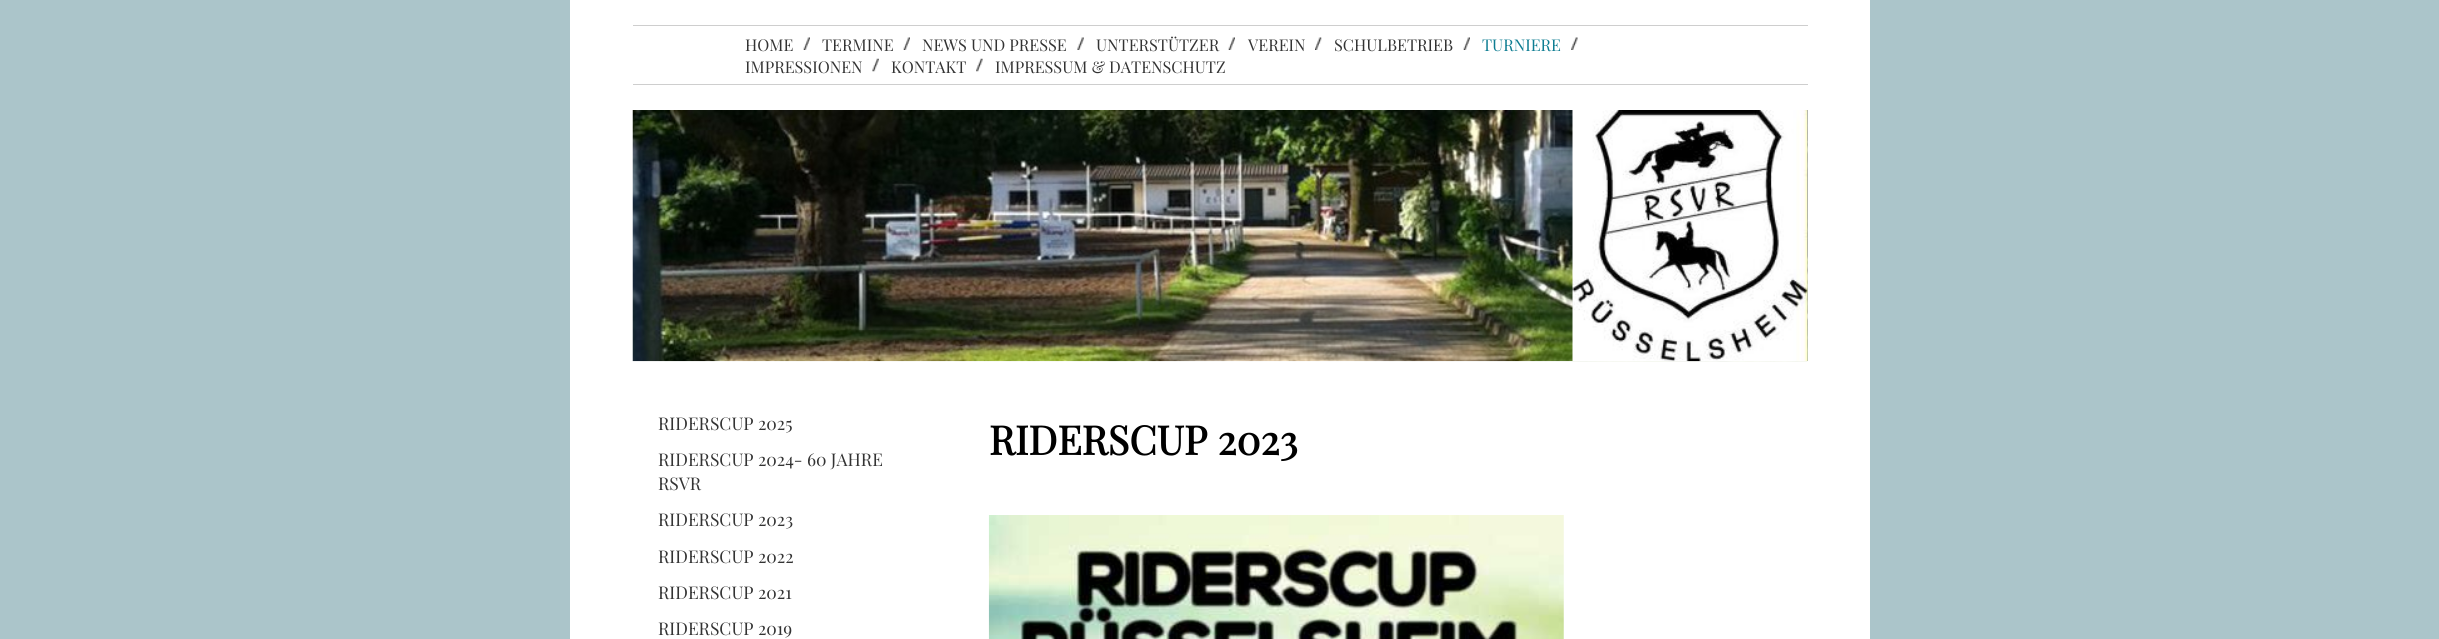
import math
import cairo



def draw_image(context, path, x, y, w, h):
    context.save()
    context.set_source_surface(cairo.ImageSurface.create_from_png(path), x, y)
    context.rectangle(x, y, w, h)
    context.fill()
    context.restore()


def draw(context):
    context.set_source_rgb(171 / 255, 197 / 255, 202 / 255)
    context.paint()
    context.set_source_rgb(1, 1, 1)
    context.rectangle(570, 0, 1300, 639)
    context.fill()
    context.set_source_rgb(206 / 255, 206 / 255, 206 / 255)
    context.rectangle(633, 25, 1175, 1)
    context.fill()
    context.rectangle(633, 84, 1175, 1)
    context.fill()
    draw_image(context, "images/1.png", 803, 37, 7, 13)
    draw_image(context, "images/1.png", 903, 37, 7, 13)
    draw_image(context, "images/2.png", 1077, 37, 7, 13)
    draw_image(context, "images/3.png", 1228, 37, 7, 13)
    draw_image(context, "images/4.png", 1315, 37, 7, 13)
    draw_image(context, "images/3.png", 1463, 37, 7, 13)
    draw_image(context, "images/5.png", 1571, 37, 7, 13)
    draw_image(context, "images/6.png", 872, 58, 7, 14)
    draw_image(context, "images/7.png", 976, 58, 7, 14)
    context.set_source_rgb(204 / 255, 204 / 255, 204 / 255)
    context.rectangle(1807, 110, 1, 251)
    context.fill()
    draw_image(context, "images/8.png", 632, 110, 1176, 252)
    draw_image(context, "images/9.png", 1572, 110, 236, 252)
    draw_image(context, "images/10.png", 988, 515, 576, 124)
    context.select_font_face("Playfair Display")
    context.set_font_size(16.25)
    context.set_source_rgb(51 / 255, 51 / 255, 51 / 255)
    context.move_to(745, 51)
    context.show_text("HOME")
    context.move_to(822, 51)
    context.show_text("TERMINE")
    context.move_to(922, 51)
    context.show_text("NEWS UND PRESSE")
    context.move_to(1096, 51)
    context.show_text("UNTERSTÜTZER")
    context.move_to(1248, 51)
    context.show_text("VEREIN")
    context.move_to(1334, 51)
    context.show_text("SCHULBETRIEB")
    context.set_source_rgb(14 / 255, 125 / 255, 146 / 255)
    context.move_to(1482, 51)
    context.show_text("TURNIERE")
    context.set_source_rgb(51 / 255, 51 / 255, 51 / 255)
    context.move_to(745, 73)
    context.show_text("IMPRESSIONEN")
    context.move_to(891, 73)
    context.show_text("KONTAKT")
    context.move_to(995, 73)
    context.show_text("IMPRESSUM & DATENSCHUTZ")
    context.set_font_size(17.5)
    context.move_to(658, 430)
    context.show_text("RIDERSCUP 2025")
    context.move_to(658, 466)
    context.show_text("RIDERSCUP 2024- 60 JAHRE")
    context.move_to(658, 490)
    context.show_text("RSVR")
    context.move_to(658, 526)
    context.show_text("RIDERSCUP 2023")
    context.move_to(658, 563)
    context.show_text("RIDERSCUP 2022")
    context.move_to(658, 599)
    context.show_text("RIDERSCUP 2021")
    context.move_to(658, 635)
    context.show_text("RIDERSCUP 2019")
    context.select_font_face("Playfair Display", cairo.FontSlant.NORMAL, cairo.FontWeight.BOLD)
    context.set_font_size(40)
    context.set_source_rgb(0, 0, 0)
    context.move_to(989, 455)
    context.show_text("RIDERSCUP 2023")


surface = cairo.ImageSurface(cairo.Format.RGB24, 2439, 639)
context = cairo.Context(surface)
options = cairo.FontOptions()
options.set_hint_metrics(cairo.HintMetrics.OFF)
options.set_hint_style(cairo.HintStyle.NONE)
context.set_font_options(options)
context.set_miter_limit(4)
draw(context)
surface.write_to_png("out.png")
